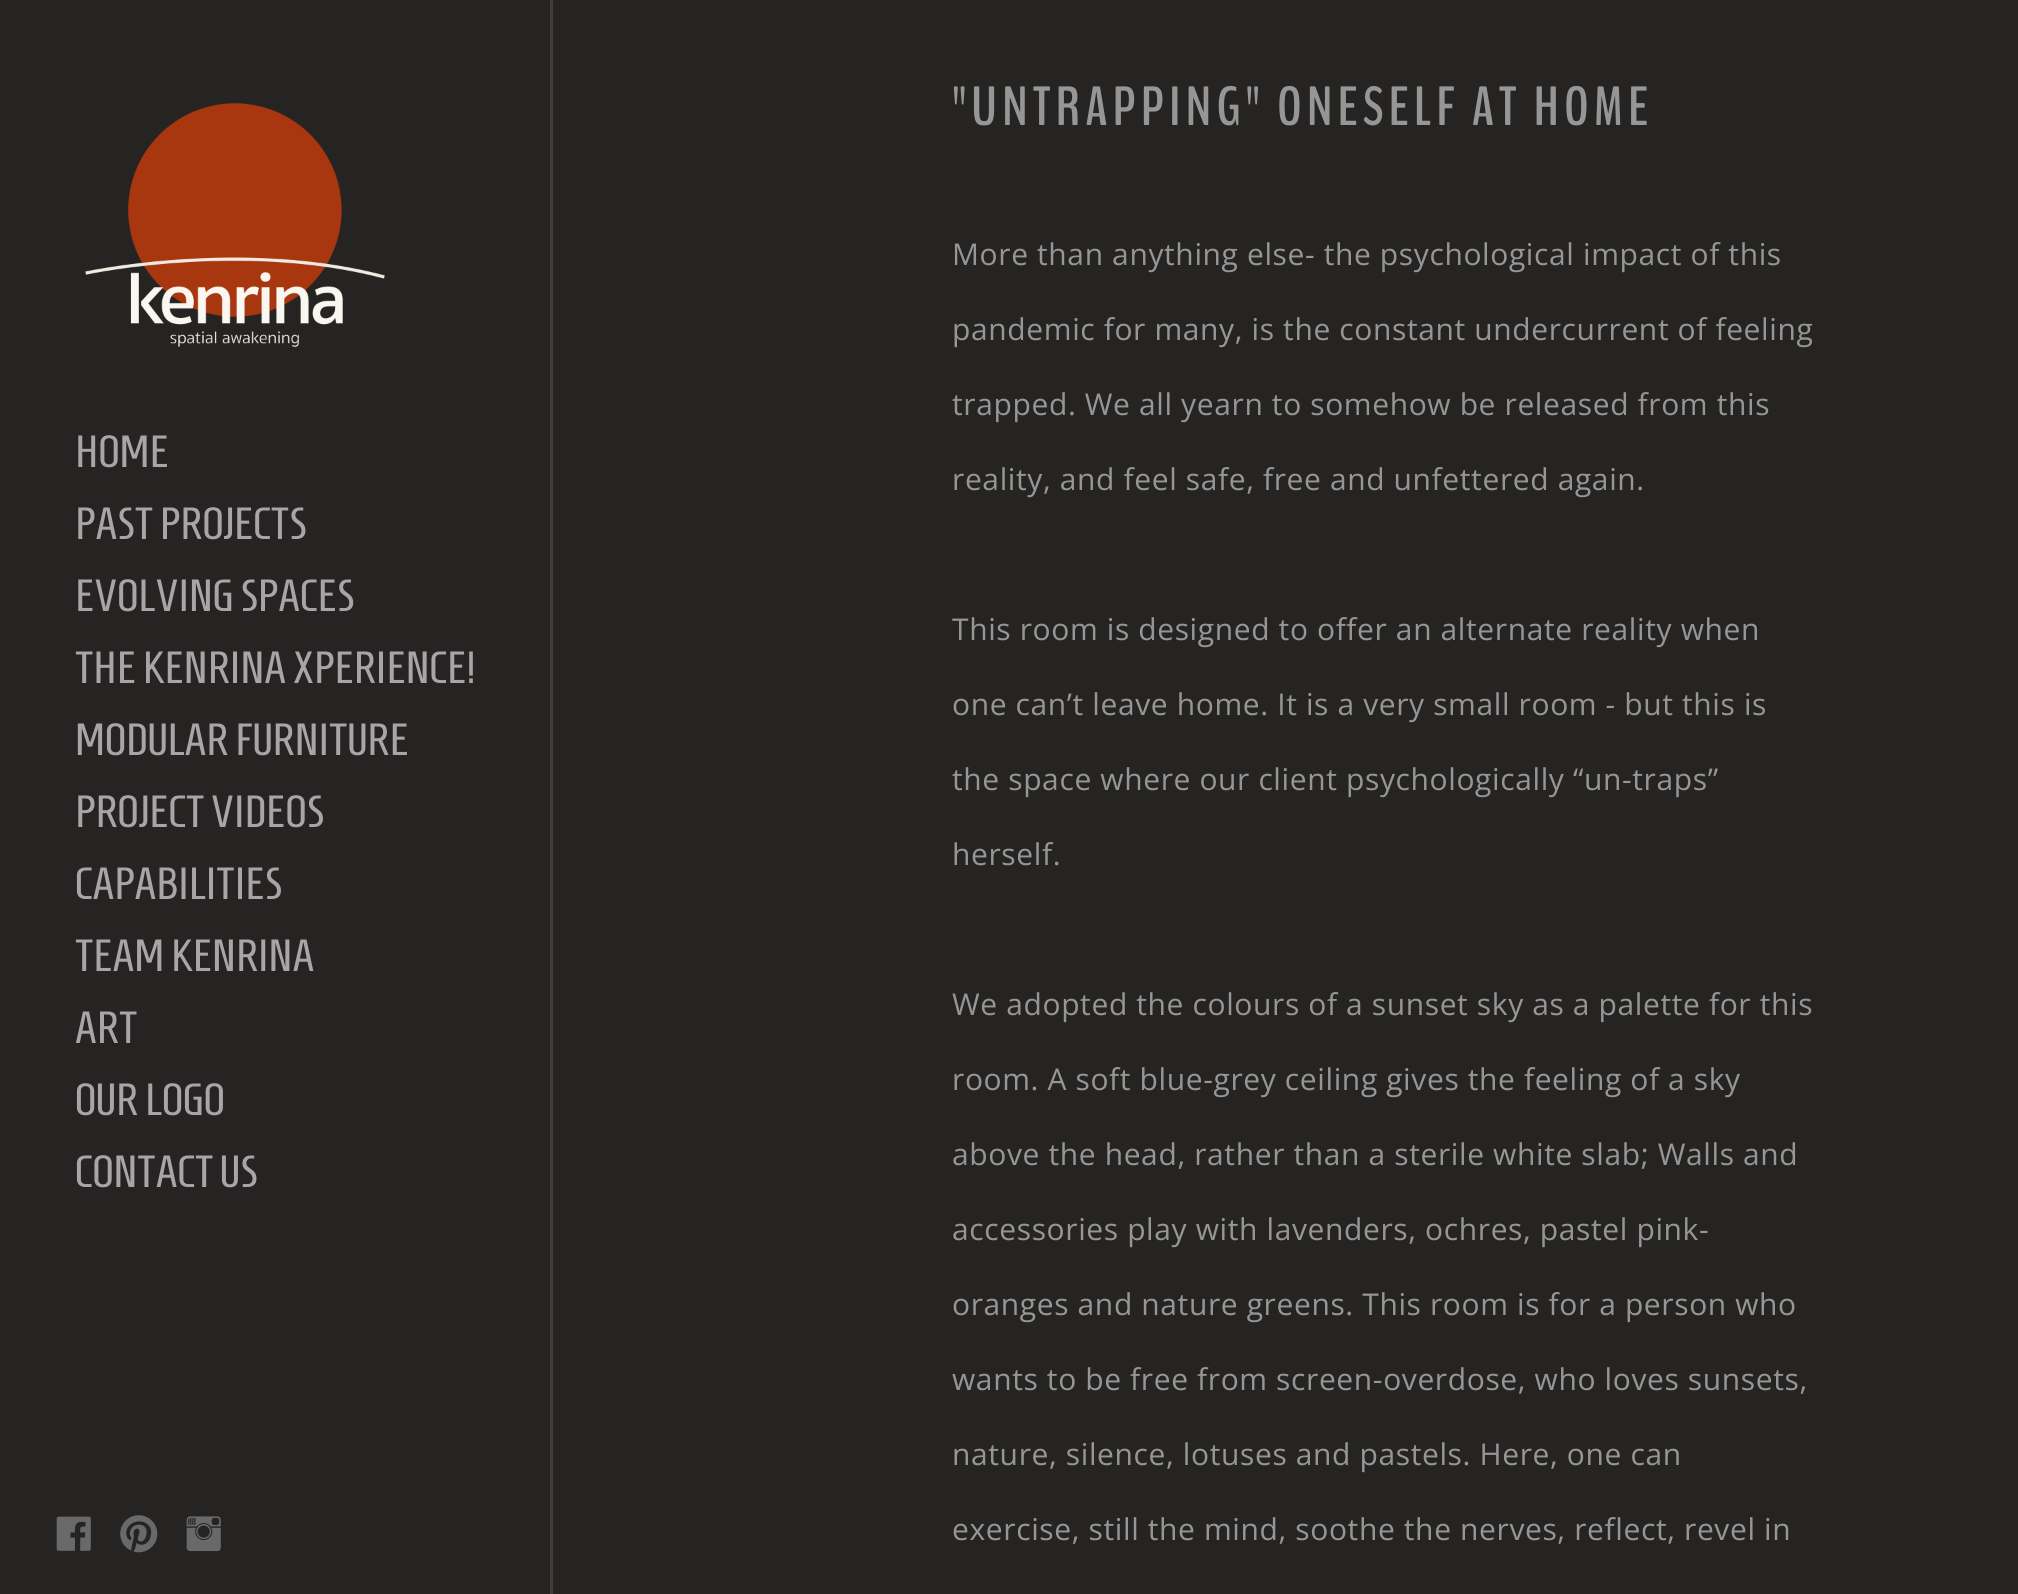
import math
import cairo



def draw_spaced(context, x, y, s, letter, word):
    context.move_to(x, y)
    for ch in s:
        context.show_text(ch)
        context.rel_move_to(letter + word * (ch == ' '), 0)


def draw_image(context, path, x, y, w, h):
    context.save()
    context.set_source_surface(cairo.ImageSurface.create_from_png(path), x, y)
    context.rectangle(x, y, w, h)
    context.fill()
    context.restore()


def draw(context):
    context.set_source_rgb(37 / 255, 36 / 255, 34 / 255)
    context.paint()
    context.set_source_rgb(63 / 255, 62 / 255, 61 / 255)
    context.rectangle(550, 0, 3, 1594)
    context.fill()
    draw_image(context, "images/1.png", 85, 103, 300, 244)
    draw_image(context, "images/2.png", 56, 1516, 35, 35)
    draw_image(context, "images/3.png", 120, 1515, 38, 38)
    draw_image(context, "images/4.png", 186, 1516, 35, 36)
    context.select_font_face("Homenaje")
    context.set_font_size(45)
    context.set_source_rgb(168 / 255, 165 / 255, 168 / 255)
    context.move_to(75, 467)
    context.show_text("HOME")
    context.move_to(75, 539)
    context.show_text("PAST PROJECTS")
    context.move_to(75, 611)
    context.show_text("EVOLVING SPACES")
    context.move_to(75, 683)
    context.show_text("THE KENRINA XPERIENCE!")
    context.move_to(75, 755)
    context.show_text("MODULAR FURNITURE")
    context.move_to(75, 827)
    context.show_text("PROJECT VIDEOS")
    context.move_to(75, 899)
    context.show_text("CAPABILITIES")
    context.move_to(75, 971)
    context.show_text("TEAM KENRINA")
    context.move_to(75, 1043)
    context.show_text("ART")
    context.move_to(75, 1115)
    context.show_text("OUR LOGO")
    context.move_to(75, 1187)
    context.show_text("CONTACT US")
    context.select_font_face("BenchNine", cairo.FontSlant.NORMAL, cairo.FontWeight.BOLD)
    context.set_font_size(55)
    context.set_source_rgb(150 / 255, 150 / 255, 150 / 255)
    draw_spaced(context, 952, 125, "\"UNTRAPPING\" ONESELF AT HOME", 5, 0)
    context.select_font_face("Open Sans")
    context.set_font_size(30)
    draw_spaced(context, 952, 265, "More than anything else- the psychological impact of this", 0.62, 0)
    draw_spaced(context, 952, 340, "pandemic for many, is the constant undercurrent of feeling", 0.62, 0)
    draw_spaced(context, 952, 415, "trapped. We all yearn to somehow be released from this", 0.62, 0)
    draw_spaced(context, 952, 490, "reality, and feel safe, free and unfettered again.", 0.62, 0)
    draw_spaced(context, 952, 640, "This room is designed to offer an alternate reality when", 0.62, 0)
    draw_spaced(context, 952, 715, "one can’t leave home. It is a very small room - but this is", 0.62, 0)
    draw_spaced(context, 952, 790, "the space where our client psychologically “un-traps”", 0.62, 0)
    draw_spaced(context, 952, 865, "herself.", 0.62, 0)
    draw_spaced(context, 952, 1015, "We adopted the colours of a sunset sky as a palette for this", 0.62, 0)
    draw_spaced(context, 952, 1090, "room. A soft blue-grey ceiling gives the feeling of a sky", 0.62, 0)
    draw_spaced(context, 952, 1165, "above the head, rather than a sterile white slab; Walls and", 0.62, 0)
    draw_spaced(context, 952, 1240, "accessories play with lavenders, ochres, pastel pink-", 0.62, 0)
    draw_spaced(context, 952, 1315, "oranges and nature greens. This room is for a person who", 0.62, 0)
    draw_spaced(context, 952, 1390, "wants to be free from screen-overdose, who loves sunsets,", 0.62, 0)
    draw_spaced(context, 952, 1465, "nature, silence, lotuses and pastels. Here, one can", 0.62, 0)
    draw_spaced(context, 952, 1540, "exercise, still the mind, soothe the nerves, reflect, revel in", 0.62, 0)


surface = cairo.ImageSurface(cairo.Format.RGB24, 2018, 1594)
context = cairo.Context(surface)
options = cairo.FontOptions()
options.set_hint_metrics(cairo.HintMetrics.OFF)
options.set_hint_style(cairo.HintStyle.NONE)
context.set_font_options(options)
context.set_miter_limit(4)
draw(context)
surface.write_to_png("out.png")
